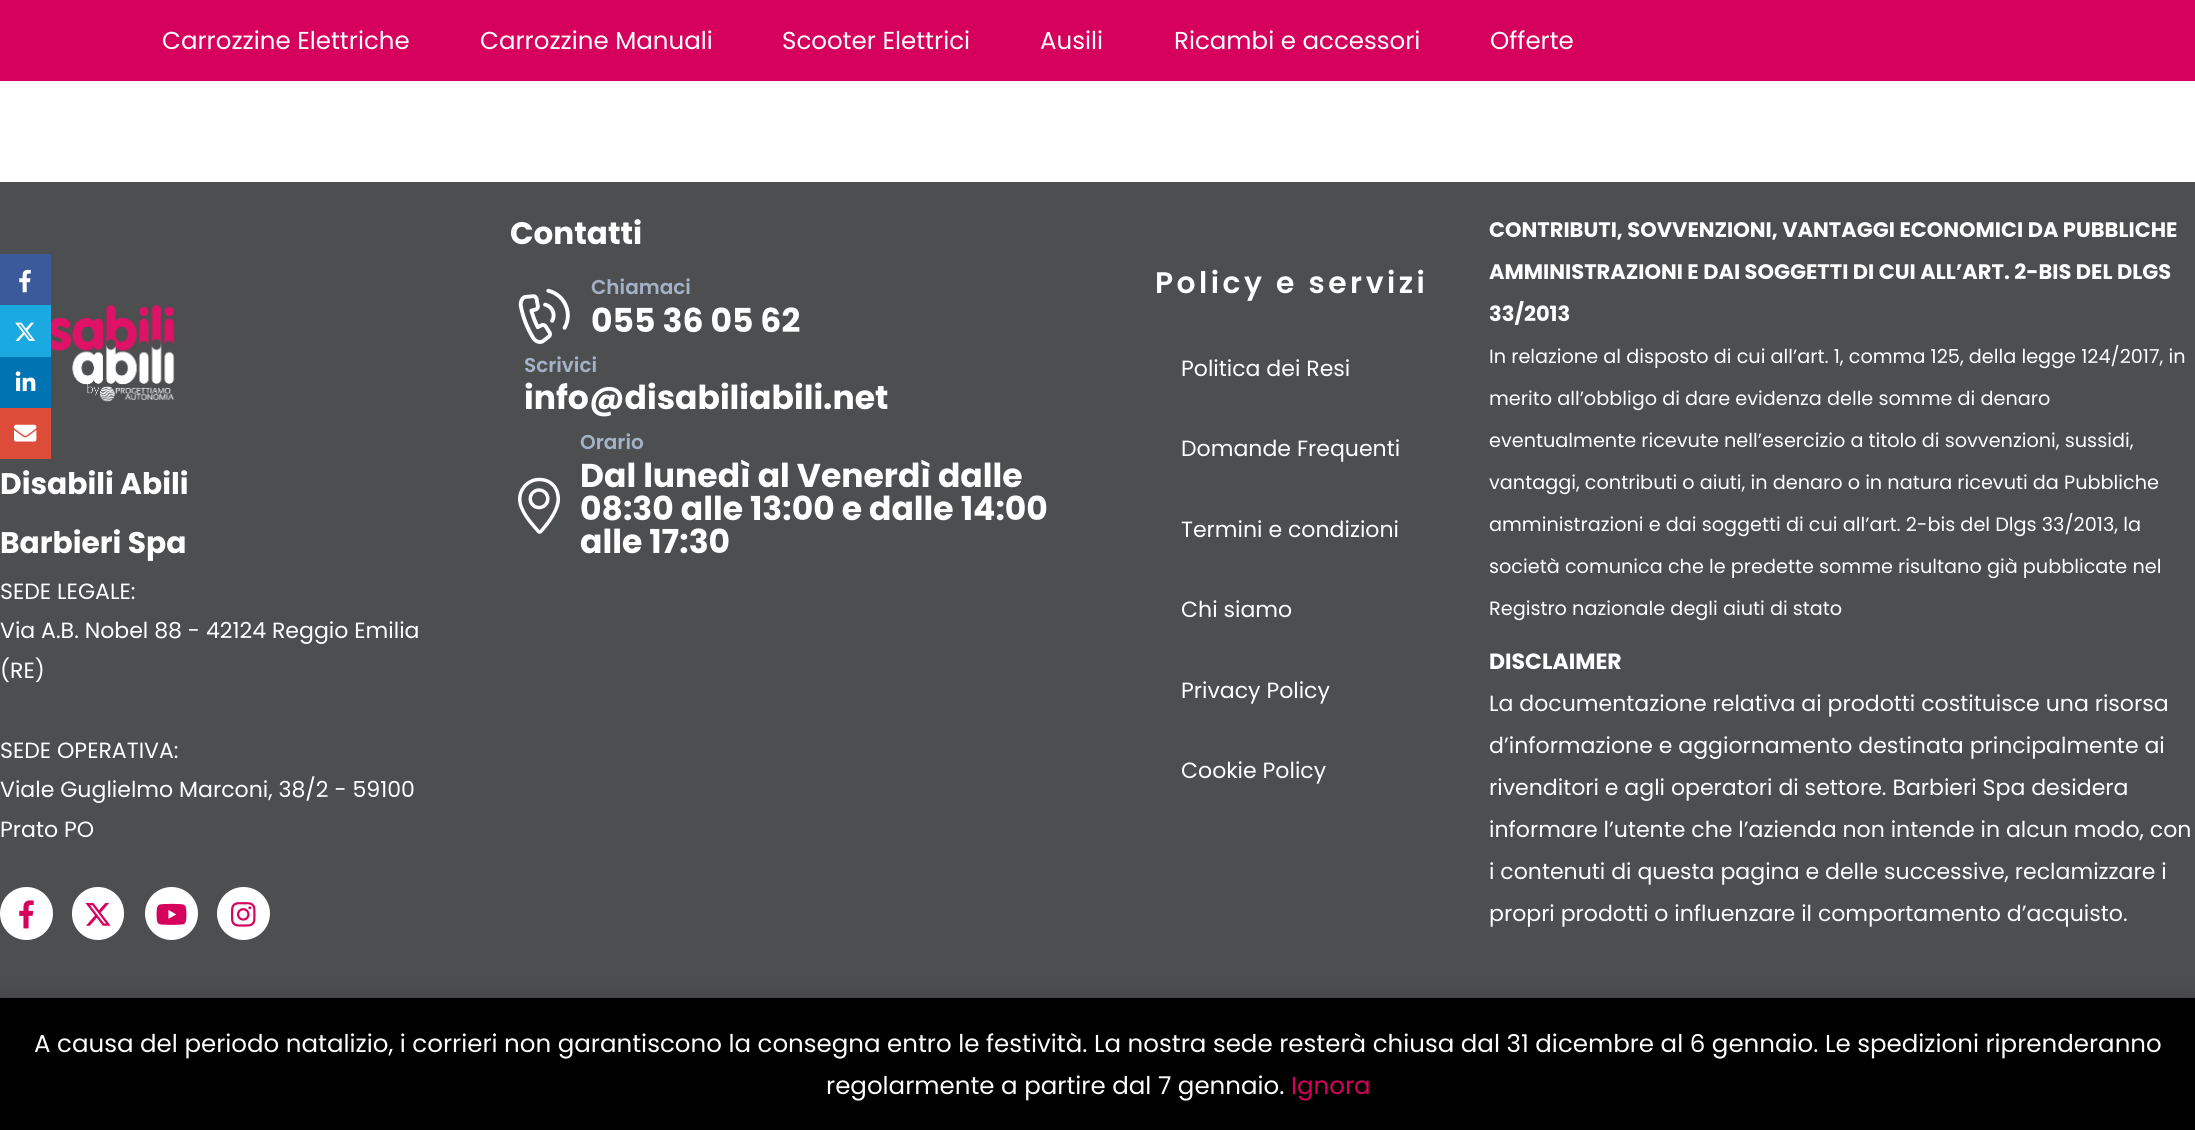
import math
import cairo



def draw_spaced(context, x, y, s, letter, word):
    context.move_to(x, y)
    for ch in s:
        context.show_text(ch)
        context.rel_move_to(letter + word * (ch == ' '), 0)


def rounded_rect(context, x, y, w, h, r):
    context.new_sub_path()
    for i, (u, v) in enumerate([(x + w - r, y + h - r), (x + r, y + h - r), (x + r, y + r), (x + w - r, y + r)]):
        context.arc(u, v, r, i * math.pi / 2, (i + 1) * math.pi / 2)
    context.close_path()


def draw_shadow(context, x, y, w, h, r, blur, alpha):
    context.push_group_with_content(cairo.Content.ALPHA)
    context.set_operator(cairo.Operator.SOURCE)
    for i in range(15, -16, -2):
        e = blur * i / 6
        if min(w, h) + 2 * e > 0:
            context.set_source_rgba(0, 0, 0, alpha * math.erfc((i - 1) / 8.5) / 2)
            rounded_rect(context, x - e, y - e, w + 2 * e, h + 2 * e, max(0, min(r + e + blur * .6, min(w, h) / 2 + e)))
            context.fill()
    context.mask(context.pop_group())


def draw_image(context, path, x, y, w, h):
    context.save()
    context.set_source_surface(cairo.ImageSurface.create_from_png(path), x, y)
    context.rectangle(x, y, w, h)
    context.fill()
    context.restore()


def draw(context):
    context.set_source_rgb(1, 1, 1)
    context.paint()
    context.set_source_rgb(0, 0, 0)
    draw_shadow(context, 0, 0, 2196, 81, 0, 2.5, 0.06)
    context.set_source_rgb(214 / 255, 1 / 255, 92 / 255)
    context.rectangle(0, 0, 2195, 81)
    context.fill()
    context.set_source_rgb(77 / 255, 78 / 255, 80 / 255)
    context.rectangle(0, 182, 2195, 816)
    context.fill()
    draw_image(context, "images/1.png", 51, 304, 124, 98)
    context.set_source_rgb(1, 1, 1)
    context.arc(26.5, 913.5, 26.5, 0, 2 * math.pi)
    context.fill()
    draw_image(context, "images/2.png", 19, 900, 15, 29)
    rounded_rect(context, 72, 887, 52, 53, 26)
    context.fill()
    draw_image(context, "images/3.png", 85, 903, 26, 23)
    context.arc(171.5, 913.5, 26.5, 0, 2 * math.pi)
    context.fill()
    draw_image(context, "images/4.png", 156, 903, 31, 22)
    context.arc(243.5, 913.5, 26.5, 0, 2 * math.pi)
    context.fill()
    draw_image(context, "images/5.png", 231, 902, 25, 25)
    draw_image(context, "images/6.png", 518, 288, 52, 56)
    draw_image(context, "images/7.png", 518, 477, 42, 57)
    context.set_source_rgb(59 / 255, 90 / 255, 154 / 255)
    context.rectangle(0, 254, 51, 51)
    context.fill()
    draw_image(context, "images/8.png", 19, 269, 12, 24)
    context.set_source_rgb(26 / 255, 169 / 255, 225 / 255)
    context.rectangle(0, 305, 51, 52)
    context.fill()
    draw_image(context, "images/9.png", 15, 322, 21, 19)
    context.set_source_rgb(0, 115 / 255, 178 / 255)
    context.rectangle(0, 357, 51, 51)
    context.fill()
    draw_image(context, "images/10.png", 15, 371, 21, 20)
    context.set_source_rgb(221 / 255, 75 / 255, 57 / 255)
    context.rectangle(0, 408, 51, 51)
    context.fill()
    draw_image(context, "images/11.png", 14, 424, 23, 18)
    context.set_source_rgb(0, 0, 0)
    draw_shadow(context, 0, 999, 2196, 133, 0, 12, 0.2)
    context.set_source_rgb(0, 0, 0)
    context.rectangle(0, 998, 2195, 132)
    context.fill()
    context.select_font_face("Poppins")
    context.set_font_size(24.5)
    context.set_source_rgb(1, 1, 1)
    context.move_to(162, 49)
    context.show_text("Carrozzine Elettriche")
    context.move_to(480, 49)
    context.show_text("Carrozzine Manuali")
    context.move_to(782, 49)
    context.show_text("Scooter Elettrici")
    context.move_to(1040, 49)
    context.show_text("Ausili")
    context.move_to(1174, 49)
    context.show_text("Ricambi e accessori")
    context.move_to(1490, 49)
    context.show_text("Offerte")
    context.select_font_face("Poppins", cairo.FontSlant.NORMAL, cairo.FontWeight.BOLD)
    context.set_font_size(29.75)
    context.move_to(0, 494)
    context.show_text("Disabili Abili")
    context.move_to(0, 553)
    context.show_text("Barbieri Spa")
    context.select_font_face("Poppins")
    context.set_font_size(22.05)
    context.move_to(0, 599)
    context.show_text("SEDE LEGALE:")
    context.move_to(0, 638)
    context.show_text("Via A.B. Nobel 88 - 42124 Reggio Emilia")
    context.move_to(0, 678)
    context.show_text("(RE)")
    context.move_to(0, 758)
    context.show_text("SEDE OPERATIVA:")
    context.move_to(0, 797)
    context.show_text("Viale Guglielmo Marconi, 38/2 - 59100")
    context.move_to(0, 837)
    context.show_text("Prato PO")
    context.select_font_face("Poppins", cairo.FontSlant.NORMAL, cairo.FontWeight.BOLD)
    context.set_font_size(31)
    context.move_to(510, 244)
    context.show_text("Contatti")
    context.select_font_face("Poppins SemiBold")
    context.set_font_size(20)
    context.set_source_rgb(163 / 255, 178 / 255, 199 / 255)
    context.move_to(591, 294)
    context.show_text("Chiamaci")
    context.select_font_face("Poppins", cairo.FontSlant.NORMAL, cairo.FontWeight.BOLD)
    context.set_font_size(33)
    context.set_source_rgb(1, 1, 1)
    context.move_to(591, 332)
    context.show_text("055 36 05 62")
    context.select_font_face("Poppins SemiBold")
    context.set_font_size(20)
    context.set_source_rgb(163 / 255, 178 / 255, 199 / 255)
    context.move_to(524, 372)
    context.show_text("Scrivici")
    context.select_font_face("Poppins", cairo.FontSlant.NORMAL, cairo.FontWeight.BOLD)
    context.set_font_size(33)
    context.set_source_rgb(1, 1, 1)
    context.move_to(524, 409)
    context.show_text("info@disabiliabili.net")
    context.select_font_face("Poppins SemiBold")
    context.set_font_size(20)
    context.set_source_rgb(163 / 255, 178 / 255, 199 / 255)
    context.move_to(580, 449)
    context.show_text("Orario")
    context.select_font_face("Poppins", cairo.FontSlant.NORMAL, cairo.FontWeight.BOLD)
    context.set_font_size(33)
    context.set_source_rgb(1, 1, 1)
    context.move_to(580, 487)
    context.show_text("Dal lunedì al Venerdì dalle")
    context.move_to(580, 520)
    context.show_text("08:30 alle 13:00 e dalle 14:00")
    context.move_to(580, 553)
    context.show_text("alle 17:30")
    context.select_font_face("Poppins SemiBold")
    context.set_font_size(29.75)
    draw_spaced(context, 1155, 293, "Policy e servizi", 3.5, 0)
    context.select_font_face("Poppins")
    context.set_font_size(22.05)
    context.move_to(1181, 376)
    context.show_text("Politica dei Resi")
    context.move_to(1181, 456)
    context.show_text("Domande Frequenti")
    context.move_to(1181, 537)
    context.show_text("Termini e condizioni")
    context.move_to(1181, 617)
    context.show_text("Chi siamo")
    context.move_to(1181, 698)
    context.show_text("Privacy Policy")
    context.move_to(1181, 778)
    context.show_text("Cookie Policy")
    context.select_font_face("Poppins", cairo.FontSlant.NORMAL, cairo.FontWeight.BOLD)
    context.set_font_size(21)
    context.move_to(1489, 237)
    context.show_text("CONTRIBUTI, SOVVENZIONI, VANTAGGI ECONOMICI DA PUBBLICHE")
    context.move_to(1489, 279)
    context.show_text("AMMINISTRAZIONI E DAI SOGGETTI DI CUI ALL’ART. 2-BIS DEL DLGS")
    context.move_to(1489, 321)
    context.show_text("33/2013")
    context.select_font_face("Poppins")
    context.set_font_size(19.25)
    context.move_to(1489, 363)
    context.show_text("In relazione al disposto di cui all’art. 1, comma 125, della legge 124/2017, in")
    context.move_to(1489, 405)
    context.show_text("merito all’obbligo di dare evidenza delle somme di denaro")
    context.move_to(1489, 447)
    context.show_text("eventualmente ricevute nell’esercizio a titolo di sovvenzioni, sussidi,")
    context.move_to(1489, 489)
    context.show_text("vantaggi, contributi o aiuti, in denaro o in natura ricevuti da Pubbliche")
    context.move_to(1489, 531)
    context.show_text("amministrazioni e dai soggetti di cui all’art. 2-bis del Dlgs 33/2013, la")
    context.move_to(1489, 573)
    context.show_text("società comunica che le predette somme risultano già pubblicate nel")
    context.move_to(1489, 615)
    context.show_text("Registro nazionale degli aiuti di stato")
    context.select_font_face("Poppins", cairo.FontSlant.NORMAL, cairo.FontWeight.BOLD)
    context.set_font_size(22.05)
    context.move_to(1489, 669)
    context.show_text("DISCLAIMER")
    context.select_font_face("Poppins")
    context.move_to(1489, 711)
    context.show_text("La documentazione relativa ai prodotti costituisce una risorsa")
    context.move_to(1489, 753)
    context.show_text("d’informazione e aggiornamento destinata principalmente ai")
    context.move_to(1489, 795)
    context.show_text("rivenditori e agli operatori di settore. Barbieri Spa desidera")
    context.move_to(1489, 837)
    context.show_text("informare l’utente che l’azienda non intende in alcun modo, con")
    context.move_to(1489, 879)
    context.show_text("i contenuti di questa pagina e delle successive, reclamizzare i")
    context.move_to(1489, 921)
    context.show_text("propri prodotti o influenzare il comportamento d’acquisto.")
    context.set_font_size(24.5)
    context.move_to(34, 1052)
    context.show_text("A causa del periodo natalizio, i corrieri non garantiscono la consegna entro le festività. La nostra sede resterà chiusa dal 31 dicembre al 6 gennaio. Le spedizioni riprenderanno")
    context.move_to(826, 1094)
    context.show_text("regolarmente a partire dal 7 gennaio.")
    context.set_source_rgb(214 / 255, 1 / 255, 92 / 255)
    context.move_to(1291, 1094)
    context.show_text("Ignora")


surface = cairo.ImageSurface(cairo.Format.RGB24, 2195, 1130)
context = cairo.Context(surface)
options = cairo.FontOptions()
options.set_hint_metrics(cairo.HintMetrics.OFF)
options.set_hint_style(cairo.HintStyle.NONE)
context.set_font_options(options)
context.set_miter_limit(4)
draw(context)
surface.write_to_png("out.png")
